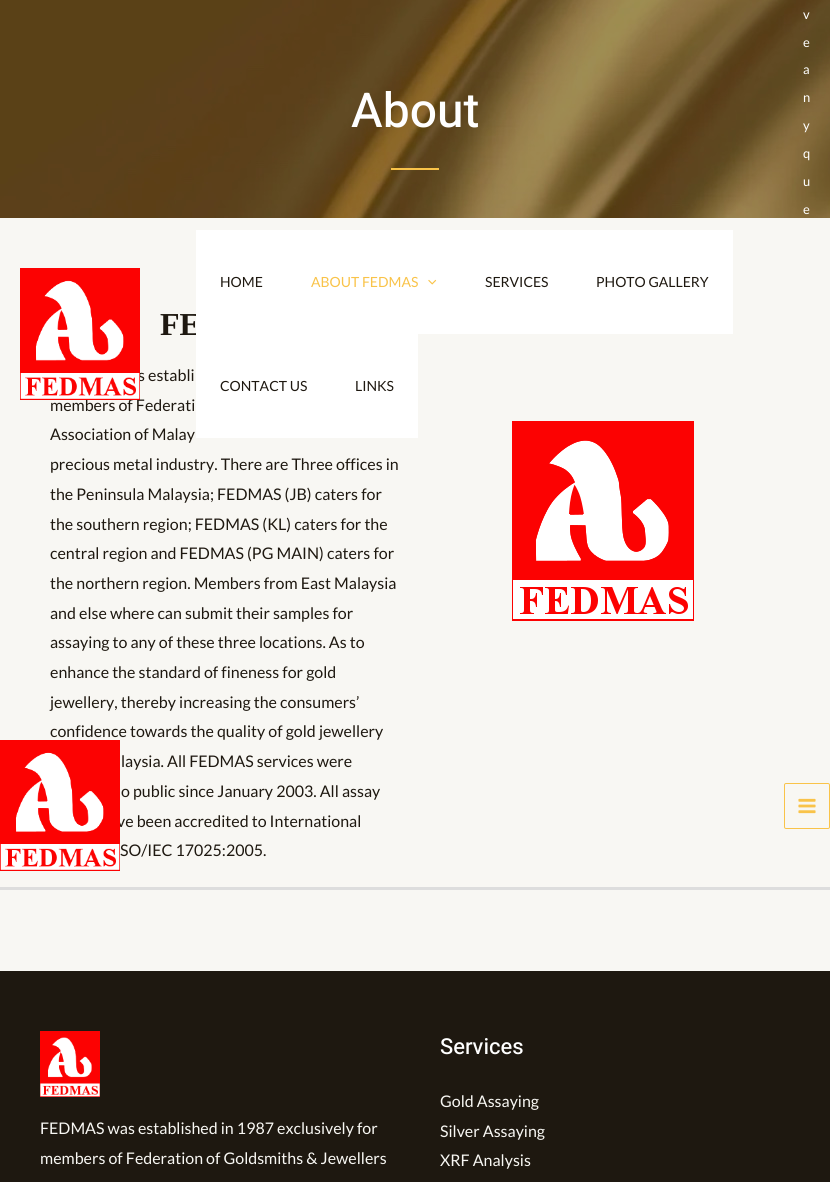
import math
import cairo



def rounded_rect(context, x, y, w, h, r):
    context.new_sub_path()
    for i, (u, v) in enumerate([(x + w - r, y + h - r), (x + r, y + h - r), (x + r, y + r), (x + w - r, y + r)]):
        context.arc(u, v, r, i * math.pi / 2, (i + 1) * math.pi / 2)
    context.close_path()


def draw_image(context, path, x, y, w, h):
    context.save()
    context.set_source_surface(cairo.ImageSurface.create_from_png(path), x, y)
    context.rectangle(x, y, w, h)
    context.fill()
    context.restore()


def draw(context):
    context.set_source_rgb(248 / 255, 247 / 255, 243 / 255)
    context.paint()
    context.set_source_rgb(221 / 255, 221 / 255, 221 / 255)
    context.rectangle(0, 887, 830, 3)
    context.fill()
    rounded_rect(context, 784.5, 783.5, 45, 45, 1.5)
    context.set_source_rgb(249 / 255, 195 / 255, 73 / 255)
    context.set_line_width(1)
    context.stroke()
    draw_image(context, "images/4.png", 798, 798, 18, 16)
    draw_image(context, "images/5.png", 0, 0, 830, 218)
    context.rectangle(391, 168, 48, 2)
    context.fill()
    draw_image(context, "images/6.png", 512, 421, 182, 200)
    context.set_source_rgb(30 / 255, 24 / 255, 16 / 255)
    context.rectangle(0, 971, 830, 211)
    context.fill()
    draw_image(context, "images/7.png", 40, 1031, 60, 66)
    context.select_font_face("Lato")
    context.set_font_size(13)
    context.set_source_rgb(1, 1, 1)
    context.move_to(803, 19)
    context.show_text("v")
    context.move_to(803, 47)
    context.show_text("e")
    context.move_to(803, 74)
    context.show_text("a")
    context.move_to(803, 102)
    context.show_text("n")
    context.move_to(803, 130)
    context.show_text("y")
    context.move_to(803, 158)
    context.show_text("q")
    context.move_to(803, 186)
    context.show_text("u")
    context.move_to(803, 214)
    context.show_text("e")
    context.select_font_face("Heebo Medium")
    context.set_font_size(48)
    context.move_to(351, 127)
    context.show_text("About")
    context.select_font_face("Liberation Serif", cairo.FontSlant.NORMAL, cairo.FontWeight.BOLD)
    context.set_font_size(32)
    context.set_source_rgb(30 / 255, 24 / 255, 16 / 255)
    context.move_to(160, 335)
    context.show_text("FE")
    context.set_source_rgb(1, 1, 1)
    context.rectangle(196, 334, 222, 104)
    context.fill()
    context.select_font_face("Lato")
    context.set_font_size(14)
    context.set_source_rgb(30 / 255, 24 / 255, 16 / 255)
    context.move_to(355, 391)
    context.show_text("LINKS")
    context.move_to(220, 391)
    context.show_text("CONTACT US")
    context.set_source_rgb(1, 1, 1)
    context.rectangle(196, 230, 537, 104)
    context.fill()
    context.set_source_rgb(30 / 255, 24 / 255, 16 / 255)
    context.move_to(596, 287)
    context.show_text("PHOTO GALLERY")
    context.move_to(485, 287)
    context.show_text("SERVICES")
    draw_image(context, "images/2.png", 428, 279, 9, 6)
    context.set_source_rgb(249 / 255, 195 / 255, 73 / 255)
    context.move_to(311, 287)
    context.show_text("ABOUT FEDMAS")
    context.set_source_rgb(30 / 255, 24 / 255, 16 / 255)
    context.move_to(220, 287)
    context.show_text("HOME")
    context.set_font_size(16)
    context.move_to(138, 381)
    context.show_text("s establi")
    context.move_to(50, 411)
    context.show_text("members of Federati")
    draw_image(context, "images/1.png", 20, 268, 120, 132)
    context.move_to(50, 440)
    context.show_text("Association of Malay")
    context.move_to(50, 470)
    context.show_text("precious metal industry. There are Three offices in")
    context.move_to(50, 500)
    context.show_text("the Peninsula Malaysia; FEDMAS (JB) caters for")
    context.move_to(50, 530)
    context.show_text("the southern region; FEDMAS (KL) caters for the")
    context.move_to(50, 559)
    context.show_text("central region and FEDMAS (PG MAIN) caters for")
    context.move_to(50, 589)
    context.show_text("the northern region. Members from East Malaysia")
    context.move_to(50, 619)
    context.show_text("and else where can submit their samples for")
    context.move_to(50, 648)
    context.show_text("assaying to any of these three locations. As to")
    context.move_to(50, 678)
    context.show_text("enhance the standard of fineness for gold")
    context.move_to(50, 708)
    context.show_text("jewellery, thereby increasing the consumers’")
    context.move_to(50, 737)
    context.show_text("confidence towards the quality of gold jewellery")
    context.move_to(121, 767)
    context.show_text("laysia. All FEDMAS services were")
    context.move_to(121, 797)
    context.show_text("o public since January 2003. All assay")
    context.move_to(117, 827)
    context.show_text("ve been accredited to International")
    draw_image(context, "images/3.png", 0, 740, 120, 131)
    context.move_to(120, 856)
    context.show_text("SO/IEC 17025:2005.")
    context.set_source_rgb(248 / 255, 247 / 255, 243 / 255)
    context.move_to(40, 1134)
    context.show_text("FEDMAS was established in 1987 exclusively for")
    context.move_to(40, 1164)
    context.show_text("members of Federation of Goldsmiths & Jewellers")
    context.select_font_face("Heebo Medium")
    context.set_font_size(22)
    context.set_source_rgb(1, 1, 1)
    context.move_to(440, 1054)
    context.show_text("Services")
    context.select_font_face("Lato")
    context.set_font_size(16)
    context.set_source_rgb(248 / 255, 247 / 255, 243 / 255)
    context.move_to(440, 1107)
    context.show_text("Gold Assaying")
    context.move_to(440, 1137)
    context.show_text("Silver Assaying")
    context.move_to(440, 1166)
    context.show_text("XRF Analysis")


surface = cairo.ImageSurface(cairo.Format.RGB24, 830, 1182)
context = cairo.Context(surface)
options = cairo.FontOptions()
options.set_hint_metrics(cairo.HintMetrics.OFF)
options.set_hint_style(cairo.HintStyle.NONE)
context.set_font_options(options)
context.set_miter_limit(4)
draw(context)
surface.write_to_png("out.png")
